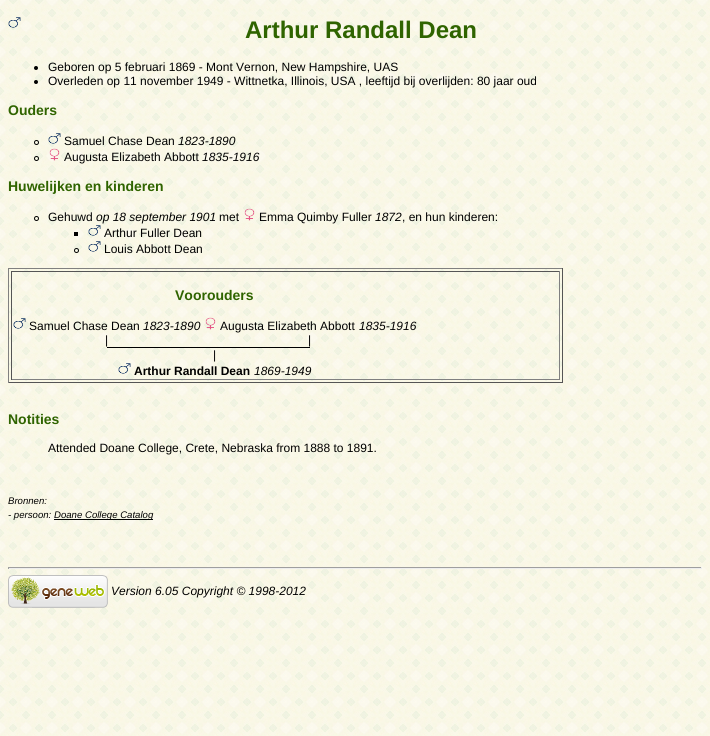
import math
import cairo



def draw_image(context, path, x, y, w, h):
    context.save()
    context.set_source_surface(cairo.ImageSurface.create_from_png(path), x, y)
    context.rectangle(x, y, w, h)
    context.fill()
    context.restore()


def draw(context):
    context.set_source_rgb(1, 1, 1)
    context.paint()
    draw_image(context, "images/1.png", 0, 0, 710, 736)
    draw_image(context, "images/2.png", 8, 17, 13, 11)
    context.set_source_rgb(0, 0, 0)
    context.arc(36, 68, 2, 0, 2 * math.pi)
    context.fill()
    context.arc(36, 82, 2, 0, 2 * math.pi)
    context.fill()
    context.arc(36.5, 142.5, 2, 0, 2 * math.pi)
    context.set_line_width(1)
    context.stroke()
    draw_image(context, "images/3.png", 48, 133, 13, 11)
    context.arc(36.5, 158.5, 2, 0, 2 * math.pi)
    context.stroke()
    draw_image(context, "images/4.png", 49, 148, 11, 13)
    context.arc(36.5, 218.5, 2, 0, 2 * math.pi)
    context.stroke()
    draw_image(context, "images/5.png", 244, 208, 11, 13)
    context.rectangle(74, 232, 4, 4)
    context.fill()
    draw_image(context, "images/6.png", 88, 225, 13, 11)
    context.arc(76.5, 250.5, 2, 0, 2 * math.pi)
    context.stroke()
    draw_image(context, "images/7.png", 88, 241, 13, 11)
    context.set_source_rgb(128 / 255, 128 / 255, 128 / 255)
    context.rectangle(8, 268, 555, 1)
    context.fill()
    context.set_source_rgb(85 / 255, 85 / 255, 85 / 255)
    context.rectangle(562, 268, 1, 115)
    context.fill()
    context.rectangle(8, 382, 555, 1)
    context.fill()
    context.set_source_rgb(128 / 255, 128 / 255, 128 / 255)
    context.rectangle(8, 268, 1, 115)
    context.fill()
    context.set_source_rgb(85 / 255, 85 / 255, 85 / 255)
    context.rectangle(11, 271, 549, 1)
    context.fill()
    context.set_source_rgb(128 / 255, 128 / 255, 128 / 255)
    context.rectangle(559, 271, 1, 109)
    context.fill()
    context.rectangle(11, 379, 549, 1)
    context.fill()
    context.set_source_rgb(85 / 255, 85 / 255, 85 / 255)
    context.rectangle(11, 271, 1, 109)
    context.fill()
    draw_image(context, "images/8.png", 13, 318, 13, 11)
    draw_image(context, "images/9.png", 205, 317, 11, 13)
    context.set_source_rgb(0, 0, 0)
    context.rectangle(107, 347, 203, 1)
    context.fill()
    draw_image(context, "images/10.png", 118, 363, 13, 11)
    context.rectangle(54, 519, 99, 1)
    context.fill()
    context.set_source_rgb(159 / 255, 159 / 255, 159 / 255)
    context.rectangle(8, 567, 694, 1)
    context.fill()
    context.set_source_rgb(238 / 255, 238 / 255, 238 / 255)
    context.rectangle(701, 567, 1, 2)
    context.fill()
    context.rectangle(8, 568, 694, 1)
    context.fill()
    context.set_source_rgb(159 / 255, 159 / 255, 159 / 255)
    context.rectangle(8, 567, 1, 2)
    context.fill()
    draw_image(context, "images/11.png", 8, 575, 100, 33)
    context.select_font_face("Liberation Sans", cairo.FontSlant.NORMAL, cairo.FontWeight.BOLD)
    context.set_font_size(24)
    context.set_source_rgb(47 / 255, 100 / 255, 0)
    context.move_to(245, 38)
    context.show_text("Arthur Randall Dean")
    context.select_font_face("Liberation Sans")
    context.set_font_size(12)
    context.set_source_rgb(0, 0, 0)
    context.move_to(48, 71)
    context.show_text("Geboren op 5 februari 1869 - Mont Vernon, New Hampshire, UAS")
    context.move_to(48, 85)
    context.show_text("Overleden op 11 november 1949 - Wittnetka, Illinois, USA , leeftijd bij overlijden: 80 jaar oud")
    context.select_font_face("Liberation Sans", cairo.FontSlant.NORMAL, cairo.FontWeight.BOLD)
    context.set_font_size(14)
    context.set_source_rgb(47 / 255, 100 / 255, 0)
    context.move_to(8, 115)
    context.show_text("Ouders")
    context.select_font_face("Liberation Sans")
    context.set_font_size(12)
    context.set_source_rgb(0, 0, 0)
    context.move_to(64, 145)
    context.show_text("Samuel Chase Dean")
    context.select_font_face("Liberation Sans", cairo.FontSlant.ITALIC)
    context.move_to(178, 145)
    context.show_text("1823-1890")
    context.select_font_face("Liberation Sans")
    context.move_to(64, 161)
    context.show_text("Augusta Elizabeth Abbott")
    context.select_font_face("Liberation Sans", cairo.FontSlant.ITALIC)
    context.move_to(202, 161)
    context.show_text("1835-1916")
    context.select_font_face("Liberation Sans", cairo.FontSlant.NORMAL, cairo.FontWeight.BOLD)
    context.set_font_size(14)
    context.set_source_rgb(47 / 255, 100 / 255, 0)
    context.move_to(8, 191)
    context.show_text("Huwelijken en kinderen")
    context.select_font_face("Liberation Sans")
    context.set_font_size(12)
    context.set_source_rgb(0, 0, 0)
    context.move_to(48, 221)
    context.show_text("Gehuwd")
    context.select_font_face("Liberation Sans", cairo.FontSlant.ITALIC)
    context.move_to(96, 221)
    context.show_text("op 18 september 1901")
    context.select_font_face("Liberation Sans")
    context.move_to(219, 221)
    context.show_text("met")
    context.move_to(259, 221)
    context.show_text("Emma Quimby Fuller")
    context.select_font_face("Liberation Sans", cairo.FontSlant.ITALIC)
    context.move_to(375, 221)
    context.show_text("1872")
    context.select_font_face("Liberation Sans")
    context.move_to(402, 221)
    context.show_text(", en hun kinderen:")
    context.move_to(104, 237)
    context.show_text("Arthur Fuller Dean")
    context.move_to(104, 253)
    context.show_text("Louis Abbott Dean")
    context.select_font_face("Liberation Sans", cairo.FontSlant.NORMAL, cairo.FontWeight.BOLD)
    context.set_font_size(14)
    context.set_source_rgb(47 / 255, 100 / 255, 0)
    context.move_to(175, 300)
    context.show_text("Voorouders")
    context.select_font_face("Liberation Sans")
    context.set_font_size(12)
    context.set_source_rgb(0, 0, 0)
    context.move_to(29, 330)
    context.show_text("Samuel Chase Dean")
    context.select_font_face("Liberation Sans", cairo.FontSlant.ITALIC)
    context.move_to(143, 330)
    context.show_text("1823-1890")
    context.select_font_face("Liberation Sans")
    context.move_to(220, 330)
    context.show_text("Augusta Elizabeth Abbott")
    context.select_font_face("Liberation Sans", cairo.FontSlant.ITALIC)
    context.move_to(359, 330)
    context.show_text("1835-1916")
    context.select_font_face("Liberation Sans")
    context.move_to(105, 344)
    context.show_text("|")
    context.move_to(308, 344)
    context.show_text("|")
    context.move_to(213, 359)
    context.show_text("|")
    context.select_font_face("Liberation Sans", cairo.FontSlant.NORMAL, cairo.FontWeight.BOLD)
    context.move_to(134, 375)
    context.show_text("Arthur Randall Dean")
    context.select_font_face("Liberation Sans", cairo.FontSlant.ITALIC)
    context.move_to(254, 375)
    context.show_text("1869-1949")
    context.select_font_face("Liberation Sans", cairo.FontSlant.NORMAL, cairo.FontWeight.BOLD)
    context.set_font_size(14)
    context.set_source_rgb(47 / 255, 100 / 255, 0)
    context.move_to(8, 424)
    context.show_text("Notities")
    context.select_font_face("Liberation Sans")
    context.set_font_size(12)
    context.set_source_rgb(0, 0, 0)
    context.move_to(48, 452)
    context.show_text("Attended Doane College, Crete, Nebraska from 1888 to 1891.")
    context.select_font_face("Liberation Sans", cairo.FontSlant.ITALIC)
    context.set_font_size(9.6)
    context.move_to(8, 504)
    context.show_text("Bronnen:")
    context.move_to(8, 518)
    context.show_text("- persoon:")
    context.move_to(54, 518)
    context.show_text("Doane College Catalog")
    context.set_font_size(12)
    context.move_to(111, 595)
    context.show_text("Version 6.05 Copyright © 1998-2012")


surface = cairo.ImageSurface(cairo.Format.RGB24, 710, 736)
context = cairo.Context(surface)
options = cairo.FontOptions()
options.set_hint_metrics(cairo.HintMetrics.OFF)
options.set_hint_style(cairo.HintStyle.NONE)
context.set_font_options(options)
context.set_miter_limit(4)
draw(context)
surface.write_to_png("out.png")
